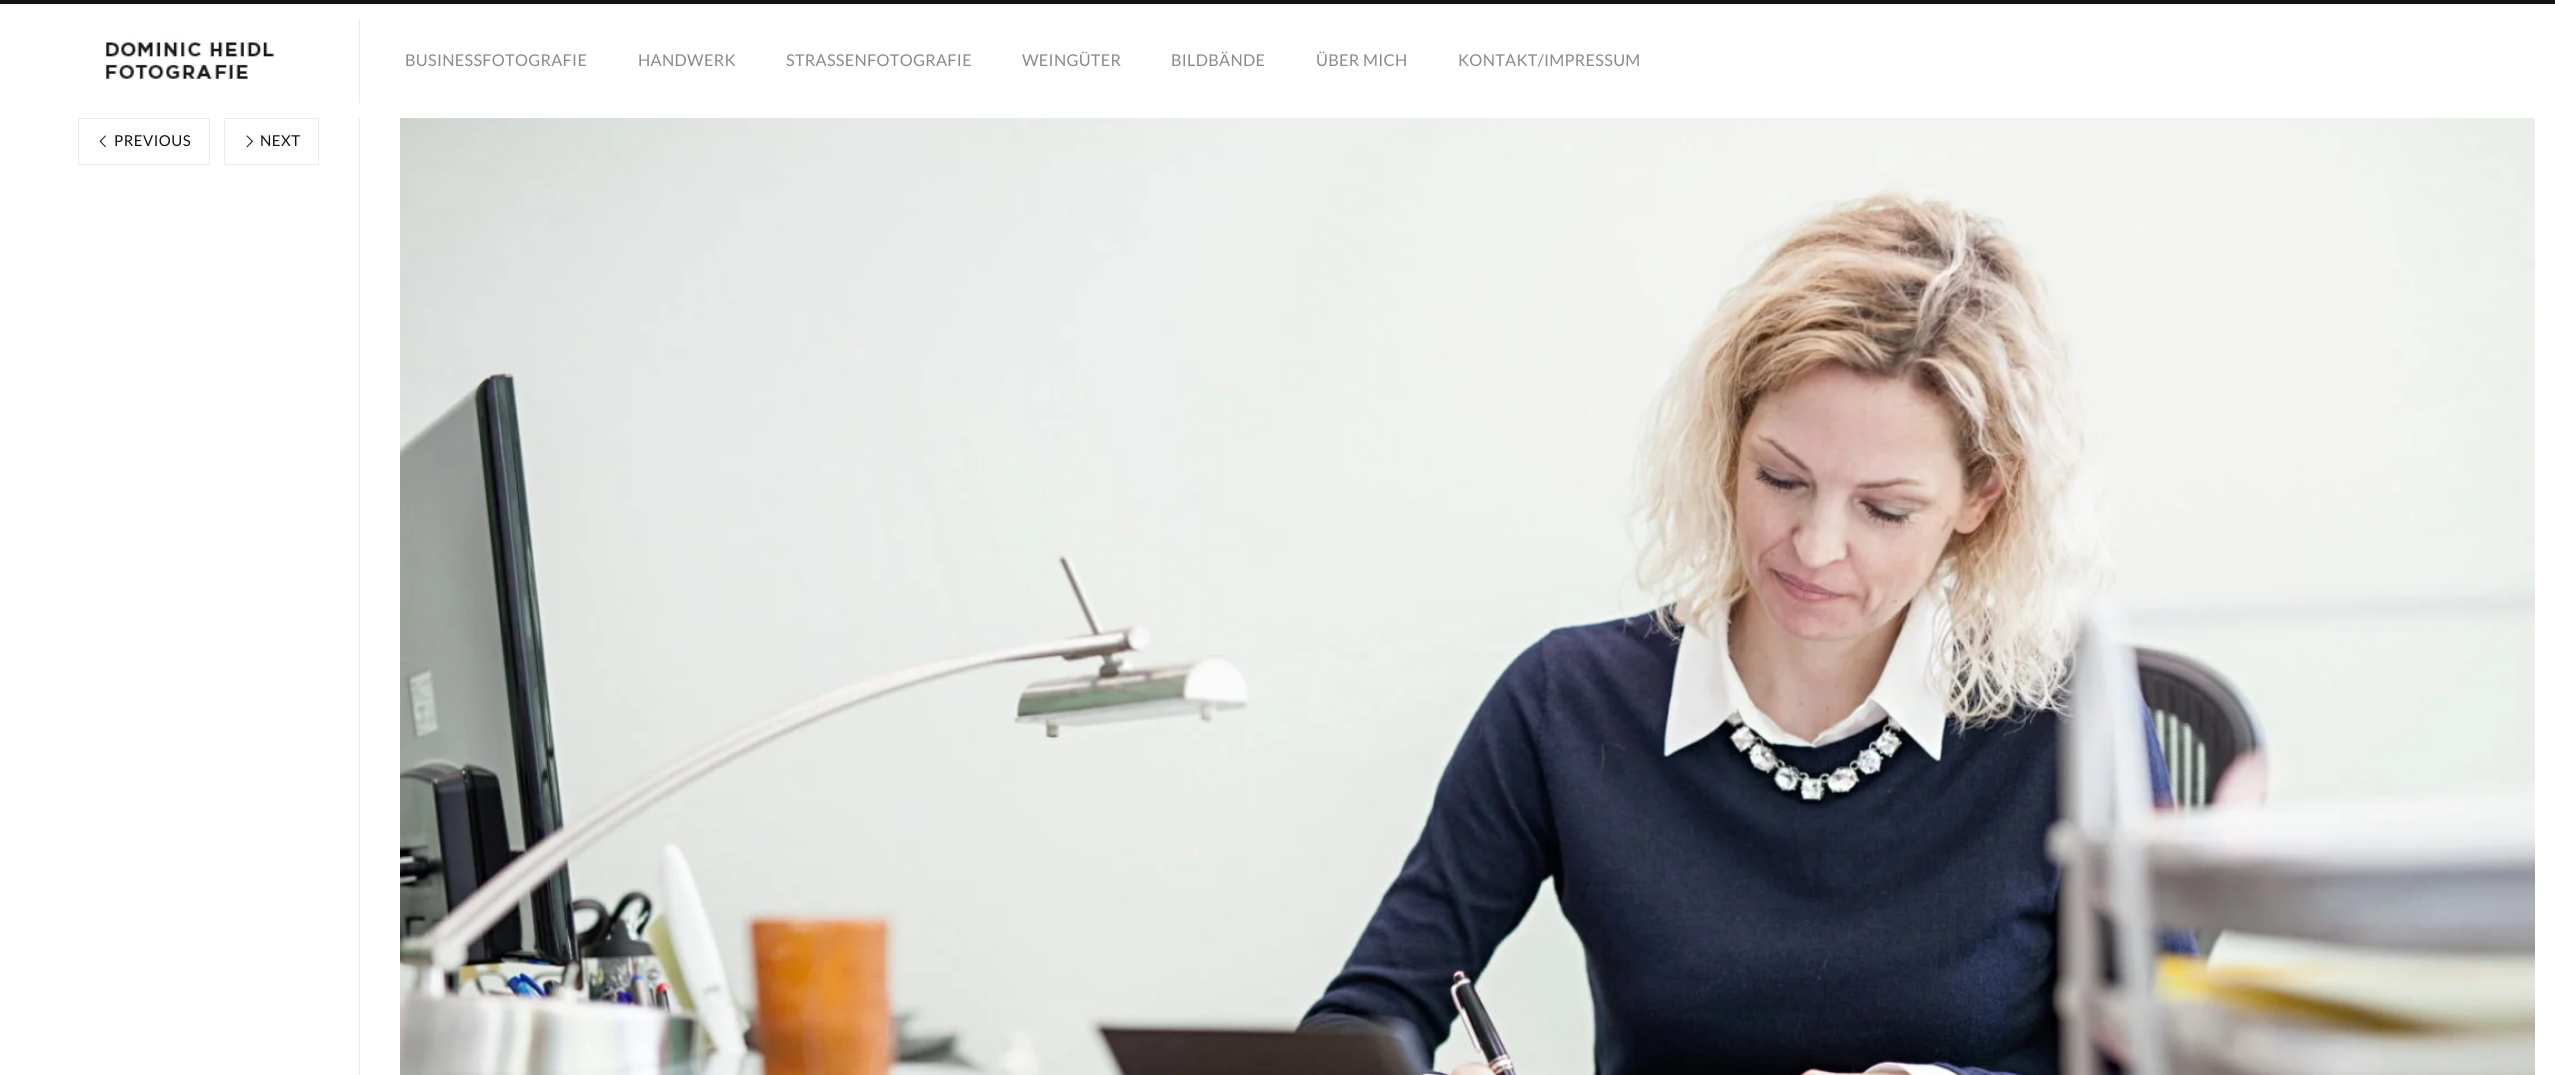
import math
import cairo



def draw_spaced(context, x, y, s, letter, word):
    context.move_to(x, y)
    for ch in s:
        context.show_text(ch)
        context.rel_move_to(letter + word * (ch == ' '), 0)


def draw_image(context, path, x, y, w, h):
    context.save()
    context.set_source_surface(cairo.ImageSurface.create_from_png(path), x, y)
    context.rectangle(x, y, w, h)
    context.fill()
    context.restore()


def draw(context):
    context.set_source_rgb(1, 1, 1)
    context.paint()
    context.set_source_rgb(17 / 255, 17 / 255, 22 / 255)
    context.rectangle(0, 0, 2555, 4)
    context.fill()
    context.set_source_rgb(235 / 255, 235 / 255, 235 / 255)
    context.rectangle(359, 19, 1, 84)
    context.fill()
    draw_image(context, "images/1.png", 104, 39, 170, 40)
    context.rectangle(359, 118, 1, 957)
    context.fill()
    context.rectangle(78.5, 118.5, 131, 46)
    context.set_line_width(1)
    context.stroke()
    draw_image(context, "images/2.png", 99, 135, 7, 13)
    context.rectangle(224.5, 118.5, 94, 46)
    context.stroke()
    draw_image(context, "images/3.png", 246, 135, 7, 13)
    draw_image(context, "images/4.png", 400, 118, 2135, 957)
    context.select_font_face("Lato")
    context.set_font_size(16.25)
    context.set_source_rgb(138 / 255, 138 / 255, 138 / 255)
    draw_spaced(context, 405, 66, "BUSINESSFOTOGRAFIE", 0.3, 0)
    draw_spaced(context, 638, 66, "HANDWERK", 0.3, 0)
    draw_spaced(context, 786, 66, "STRASSENFOTOGRAFIE", 0.3, 0)
    draw_spaced(context, 1022, 66, "WEINGÜTER", 0.3, 0)
    draw_spaced(context, 1171, 66, "BILDBÄNDE", 0.3, 0)
    draw_spaced(context, 1316, 66, "ÜBER MICH", 0.3, 0)
    draw_spaced(context, 1458, 66, "KONTAKT/IMPRESSUM", 0.3, 0)
    context.set_font_size(15)
    context.set_source_rgb(17 / 255, 17 / 255, 22 / 255)
    draw_spaced(context, 114, 146, "PREVIOUS", 0.5, 0)
    draw_spaced(context, 260, 146, "NEXT", 0.5, 0)


surface = cairo.ImageSurface(cairo.Format.RGB24, 2555, 1075)
context = cairo.Context(surface)
options = cairo.FontOptions()
options.set_hint_metrics(cairo.HintMetrics.OFF)
options.set_hint_style(cairo.HintStyle.NONE)
context.set_font_options(options)
context.set_miter_limit(4)
draw(context)
surface.write_to_png("out.png")
